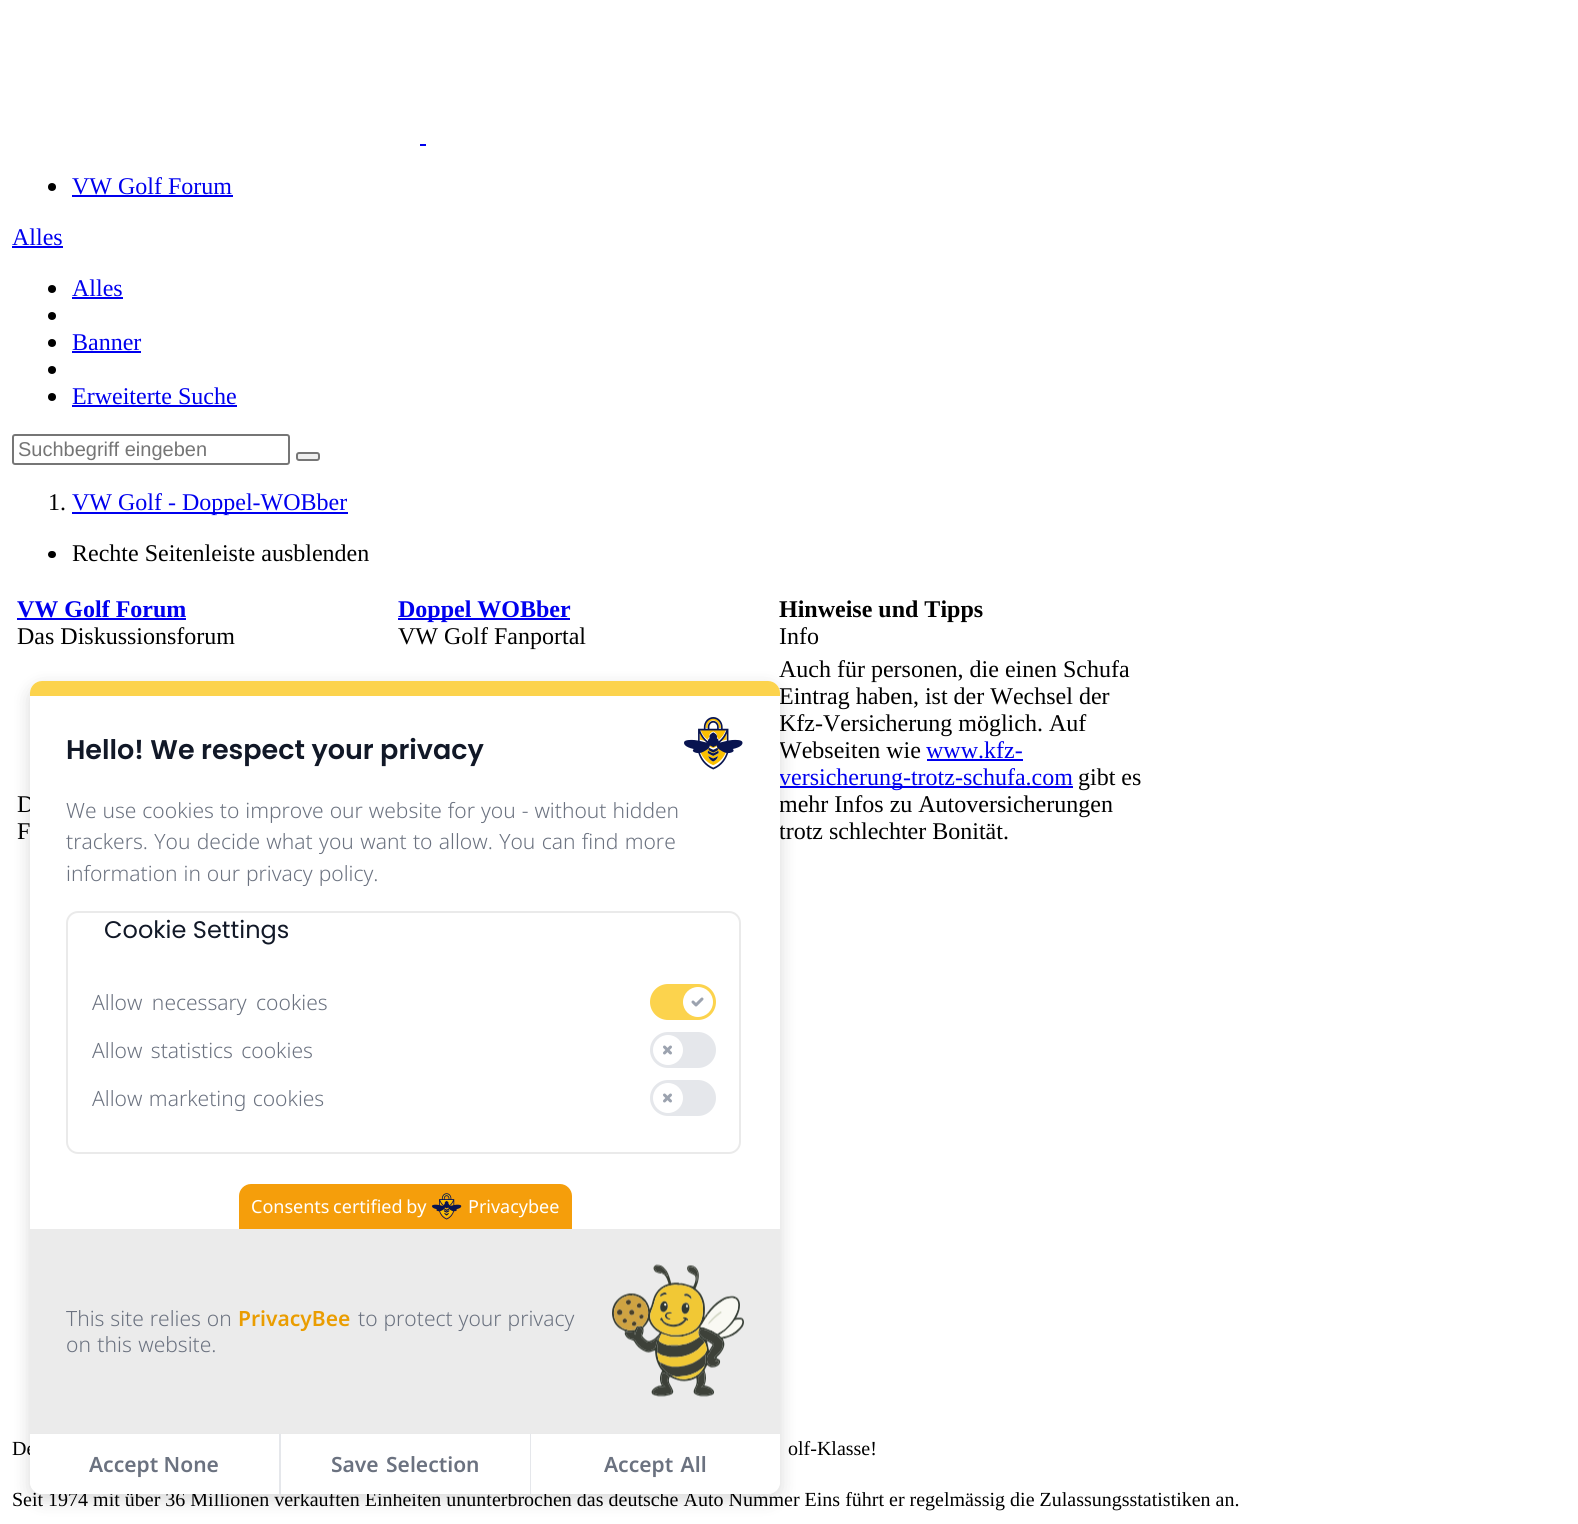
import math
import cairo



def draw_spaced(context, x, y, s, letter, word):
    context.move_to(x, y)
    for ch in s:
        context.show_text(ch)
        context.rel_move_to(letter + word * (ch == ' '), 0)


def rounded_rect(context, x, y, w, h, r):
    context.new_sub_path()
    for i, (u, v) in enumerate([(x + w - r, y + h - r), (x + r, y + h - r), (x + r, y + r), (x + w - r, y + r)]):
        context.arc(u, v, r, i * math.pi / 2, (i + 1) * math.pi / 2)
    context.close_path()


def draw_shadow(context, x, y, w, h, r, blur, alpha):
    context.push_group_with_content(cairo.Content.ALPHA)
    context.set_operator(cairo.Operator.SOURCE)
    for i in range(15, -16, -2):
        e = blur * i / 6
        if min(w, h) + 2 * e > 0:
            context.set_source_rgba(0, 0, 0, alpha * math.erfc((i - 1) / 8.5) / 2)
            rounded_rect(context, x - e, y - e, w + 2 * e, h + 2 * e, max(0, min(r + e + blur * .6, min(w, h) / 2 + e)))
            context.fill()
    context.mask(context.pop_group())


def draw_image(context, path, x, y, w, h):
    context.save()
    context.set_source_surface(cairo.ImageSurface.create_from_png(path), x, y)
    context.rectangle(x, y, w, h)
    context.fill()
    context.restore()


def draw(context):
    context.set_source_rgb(1, 1, 1)
    context.paint()
    context.set_source_rgb(0, 0, 238 / 255)
    context.rectangle(420, 144, 6, 2)
    context.fill()
    context.set_source_rgb(0, 0, 0)
    context.arc(52, 187, 4, 0, 2 * math.pi)
    context.fill()
    context.set_source_rgb(0, 0, 238 / 255)
    context.rectangle(72, 195, 161, 2)
    context.fill()
    context.rectangle(12, 246, 51, 2)
    context.fill()
    context.set_source_rgb(0, 0, 0)
    context.arc(52, 289, 4, 0, 2 * math.pi)
    context.fill()
    context.set_source_rgb(0, 0, 238 / 255)
    context.rectangle(72, 297, 51, 2)
    context.fill()
    context.set_source_rgb(0, 0, 0)
    context.arc(52, 316, 4, 0, 2 * math.pi)
    context.fill()
    context.arc(52, 343, 4, 0, 2 * math.pi)
    context.fill()
    context.set_source_rgb(0, 0, 238 / 255)
    context.rectangle(72, 351, 69, 2)
    context.fill()
    context.set_source_rgb(0, 0, 0)
    context.arc(52, 370, 4, 0, 2 * math.pi)
    context.fill()
    context.arc(52, 397, 4, 0, 2 * math.pi)
    context.fill()
    context.set_source_rgb(0, 0, 238 / 255)
    context.rectangle(72, 405, 165, 2)
    context.fill()
    rounded_rect(context, 13, 435, 276, 29, 2)
    context.set_source_rgb(118 / 255, 118 / 255, 118 / 255)
    context.stroke()
    context.set_source_rgb(239 / 255, 239 / 255, 239 / 255)
    rounded_rect(context, 297, 453, 22, 7, 2)
    context.fill_preserve()
    context.set_source_rgb(118 / 255, 118 / 255, 118 / 255)
    context.stroke()
    context.set_source_rgb(0, 0, 238 / 255)
    context.rectangle(72, 512, 276, 2)
    context.fill()
    context.set_source_rgb(0, 0, 0)
    rounded_rect(context, 48, 551, 8, 7, 3.5)
    context.fill()
    context.set_source_rgb(0, 0, 238 / 255)
    context.rectangle(17, 618, 169, 2)
    context.fill()
    context.rectangle(398, 618, 172, 2)
    context.fill()
    context.rectangle(927, 759, 96, 2)
    context.fill()
    context.rectangle(779, 786, 294, 2)
    context.fill()
    context.set_source_rgb(0, 0, 0)
    draw_shadow(context, 30, 687, 750, 813, 12, 9, 0.15)
    context.select_font_face("Liberation Serif")
    context.set_font_size(24)
    context.set_source_rgb(0, 0, 238 / 255)
    context.move_to(72, 194)
    context.show_text("VW Golf Forum")
    context.move_to(12, 245)
    context.show_text("Alles")
    context.move_to(72, 296)
    context.show_text("Alles")
    context.move_to(72, 350)
    context.show_text("Banner")
    context.move_to(72, 404)
    context.show_text("Erweiterte Suche")
    context.select_font_face("Liberation Sans")
    context.set_font_size(20)
    context.set_source_rgb(117 / 255, 117 / 255, 117 / 255)
    context.move_to(18, 456)
    context.show_text("Suchbegriff eingeben")
    context.select_font_face("Liberation Serif")
    context.set_font_size(24)
    context.set_source_rgb(0, 0, 0)
    context.move_to(48, 510)
    context.show_text("1.")
    context.set_source_rgb(0, 0, 238 / 255)
    context.move_to(72, 510)
    context.show_text("VW Golf - Doppel-WOBber")
    context.set_source_rgb(0, 0, 0)
    context.move_to(72, 561)
    context.show_text("Rechte Seitenleiste ausblenden")
    context.select_font_face("Liberation Serif", cairo.FontSlant.NORMAL, cairo.FontWeight.BOLD)
    context.set_source_rgb(0, 0, 238 / 255)
    context.move_to(17, 617)
    context.show_text("VW Golf Forum")
    context.select_font_face("Liberation Serif")
    context.set_source_rgb(0, 0, 0)
    context.move_to(17, 644)
    context.show_text("Das Diskussionsforum")
    context.select_font_face("Liberation Serif", cairo.FontSlant.NORMAL, cairo.FontWeight.BOLD)
    context.set_source_rgb(0, 0, 238 / 255)
    context.move_to(398, 617)
    context.show_text("Doppel WOBber")
    context.select_font_face("Liberation Serif")
    context.set_source_rgb(0, 0, 0)
    context.move_to(398, 644)
    context.show_text("VW Golf Fanportal")
    context.select_font_face("Liberation Serif", cairo.FontSlant.NORMAL, cairo.FontWeight.BOLD)
    context.move_to(779, 617)
    context.show_text("Hinweise und Tipps")
    context.select_font_face("Liberation Serif")
    context.move_to(779, 644)
    context.show_text("Info")
    context.move_to(17, 812)
    context.show_text("D")
    context.move_to(17, 839)
    context.show_text("F")
    context.move_to(779, 677)
    context.show_text("Auch für personen, die einen Schufa")
    context.move_to(779, 704)
    context.show_text("Eintrag haben, ist der Wechsel der")
    context.move_to(779, 731)
    context.show_text("Kfz-Versicherung möglich. Auf")
    context.move_to(779, 758)
    context.show_text("Webseiten wie")
    context.set_source_rgb(0, 0, 238 / 255)
    context.move_to(926, 758)
    context.show_text("www.kfz-")
    context.move_to(779, 785)
    context.show_text("versicherung-trotz-schufa.com")
    context.set_source_rgb(0, 0, 0)
    context.move_to(1078, 785)
    context.show_text("gibt es")
    context.move_to(779, 812)
    context.show_text("mehr Infos zu Autoversicherungen")
    context.move_to(779, 839)
    context.show_text("trotz schlechter Bonität.")
    context.set_font_size(20)
    context.move_to(12, 1455)
    context.show_text("De")
    context.move_to(788, 1455)
    context.show_text("olf-Klasse!")
    context.move_to(12, 1506)
    context.show_text("Seit 1974 mit über 36 Millionen verkauften Einheiten ununterbrochen das deutsche Auto Nummer Eins führt er regelmässig die Zulassungsstatistiken an.")
    context.set_source_rgb(1, 1, 1)
    rounded_rect(context, 30, 681, 750, 813, 12)
    context.fill()
    context.set_source_rgb(252 / 255, 211 / 255, 77 / 255)
    context.new_path()
    context.move_to(42, 681)
    context.line_to(768, 681)
    context.curve_to(774.5, 681, 780, 686.5, 780, 693)
    context.line_to(780, 696)
    context.line_to(30, 696)
    context.line_to(30, 693)
    context.curve_to(30, 686.5, 35.5, 681, 42, 681)
    context.close_path()
    context.fill()
    context.select_font_face("Poppins SemiBold")
    context.set_font_size(27)
    context.set_source_rgb(17 / 255, 24 / 255, 39 / 255)
    context.move_to(66, 759)
    context.show_text("Hello! We respect your privacy")
    draw_image(context, "images/1.png", 684, 717, 59, 53)
    context.select_font_face("Noto Sans Light")
    context.set_font_size(21)
    context.set_source_rgb(107 / 255, 114 / 255, 128 / 255)
    draw_spaced(context, 66, 818, "We use cookies to improve our website for you - without hidden", 0, 0.5)
    draw_spaced(context, 66, 849, "trackers. You decide what you want to allow. You can find more", 0, 0.9)
    draw_spaced(context, 66, 881, "information in our privacy policy.", 0, 0.5)
    rounded_rect(context, 67, 912, 673, 241, 11)
    context.set_source_rgb(234 / 255, 234 / 255, 234 / 255)
    context.stroke()
    context.select_font_face("Poppins")
    context.set_font_size(24)
    context.set_source_rgb(17 / 255, 24 / 255, 39 / 255)
    context.move_to(104, 938)
    context.show_text("Cookie Settings")
    context.select_font_face("Noto Sans Light")
    context.set_font_size(21)
    context.set_source_rgb(107 / 255, 114 / 255, 128 / 255)
    draw_spaced(context, 92, 1010, "Allow necessary cookies", 0, 4)
    context.set_source_rgb(252 / 255, 211 / 255, 77 / 255)
    rounded_rect(context, 650, 984, 66, 36, 18)
    context.fill()
    context.set_source_rgb(1, 1, 1)
    context.arc(698, 1002, 15, 0, 2 * math.pi)
    context.fill()
    context.new_path()
    context.move_to(702, 999)
    context.line_to(696, 1005)
    context.line_to(693, 1002)
    context.set_source_rgb(156 / 255, 163 / 255, 175 / 255)
    context.set_line_width(3)
    context.set_line_cap(cairo.LineCap.ROUND)
    context.set_line_join(cairo.LineJoin.ROUND)
    context.stroke()
    context.set_source_rgb(107 / 255, 114 / 255, 128 / 255)
    draw_spaced(context, 92, 1058, "Allow statistics cookies", 0, 3)
    context.set_source_rgb(229 / 255, 231 / 255, 235 / 255)
    rounded_rect(context, 650, 1032, 66, 36, 18)
    context.fill()
    context.set_source_rgb(1, 1, 1)
    context.arc(668, 1050, 15, 0, 2 * math.pi)
    context.fill()
    draw_image(context, "images/2.png", 663, 1045, 9, 10)
    context.set_source_rgb(107 / 255, 114 / 255, 128 / 255)
    draw_spaced(context, 92, 1106, "Allow marketing cookies", 0, 1)
    context.set_source_rgb(229 / 255, 231 / 255, 235 / 255)
    rounded_rect(context, 650, 1080, 66, 36, 18)
    context.fill()
    context.set_source_rgb(1, 1, 1)
    context.arc(668, 1098, 15, 0, 2 * math.pi)
    context.fill()
    draw_image(context, "images/2.png", 663, 1093, 9, 10)
    context.set_source_rgb(245 / 255, 158 / 255, 11 / 255)
    context.new_path()
    context.move_to(251, 1184)
    context.line_to(560, 1184)
    context.curve_to(566.5, 1184, 572, 1189.5, 572, 1196)
    context.line_to(572, 1229)
    context.line_to(239, 1229)
    context.line_to(239, 1196)
    context.curve_to(239, 1189.5, 244.5, 1184, 251, 1184)
    context.close_path()
    context.fill()
    context.select_font_face("Noto Sans")
    context.set_font_size(18)
    context.set_source_rgb(1, 1, 1)
    draw_spaced(context, 251, 1213, "Consents certified by", 0, -1)
    draw_image(context, "images/3.png", 432, 1193, 30, 27)
    context.move_to(468, 1213)
    context.show_text("Privacybee")
    context.set_source_rgb(235 / 255, 235 / 255, 235 / 255)
    context.rectangle(30, 1229, 750, 204)
    context.fill()
    context.select_font_face("Noto Sans Light")
    context.set_font_size(21)
    context.set_source_rgb(107 / 255, 114 / 255, 128 / 255)
    draw_spaced(context, 66, 1326, "This site relies on", 0, 0.5)
    context.select_font_face("Noto Sans SemiBold")
    context.set_source_rgb(234 / 255, 157 / 255, 1 / 255)
    context.move_to(238, 1326)
    context.show_text("PrivacyBee")
    context.select_font_face("Noto Sans Light")
    context.set_source_rgb(107 / 255, 114 / 255, 128 / 255)
    draw_spaced(context, 358, 1326, "to protect your privacy", 0, 0.5)
    draw_spaced(context, 66, 1352, "on this website.", 0, 1)
    draw_image(context, "images/4.png", 612, 1264, 132, 133)
    context.set_source_rgb(234 / 255, 234 / 255, 234 / 255)
    context.rectangle(30, 1433, 750, 1)
    context.fill()
    context.set_source_rgb(1, 1, 1)
    context.new_path()
    context.move_to(30, 1434)
    context.line_to(279, 1434)
    context.line_to(279, 1494)
    context.line_to(42, 1494)
    context.curve_to(35.5, 1494, 30, 1488.5, 30, 1482)
    context.close_path()
    context.fill()
    context.select_font_face("Noto Sans SemiBold")
    context.set_source_rgb(107 / 255, 114 / 255, 128 / 255)
    context.move_to(89, 1472)
    context.show_text("Accept None")
    context.set_source_rgb(229 / 255, 231 / 255, 235 / 255)
    context.rectangle(530, 1434, 1, 60)
    context.fill()
    context.rectangle(279, 1434, 2, 60)
    context.fill()
    context.set_source_rgb(107 / 255, 114 / 255, 128 / 255)
    draw_spaced(context, 331, 1472, "Save Selection", 0, 2)
    context.set_source_rgb(1, 1, 1)
    context.new_path()
    context.move_to(531, 1434)
    context.line_to(780, 1434)
    context.line_to(780, 1482)
    context.curve_to(780, 1488.5, 774.5, 1494, 768, 1494)
    context.line_to(531, 1494)
    context.close_path()
    context.fill()
    context.set_source_rgb(107 / 255, 114 / 255, 128 / 255)
    draw_spaced(context, 604, 1472, "Accept All", 0, 2)


surface = cairo.ImageSurface(cairo.Format.RGB24, 1578, 1524)
context = cairo.Context(surface)
options = cairo.FontOptions()
options.set_hint_metrics(cairo.HintMetrics.OFF)
options.set_hint_style(cairo.HintStyle.NONE)
context.set_font_options(options)
context.set_miter_limit(4)
draw(context)
surface.write_to_png("out.png")
